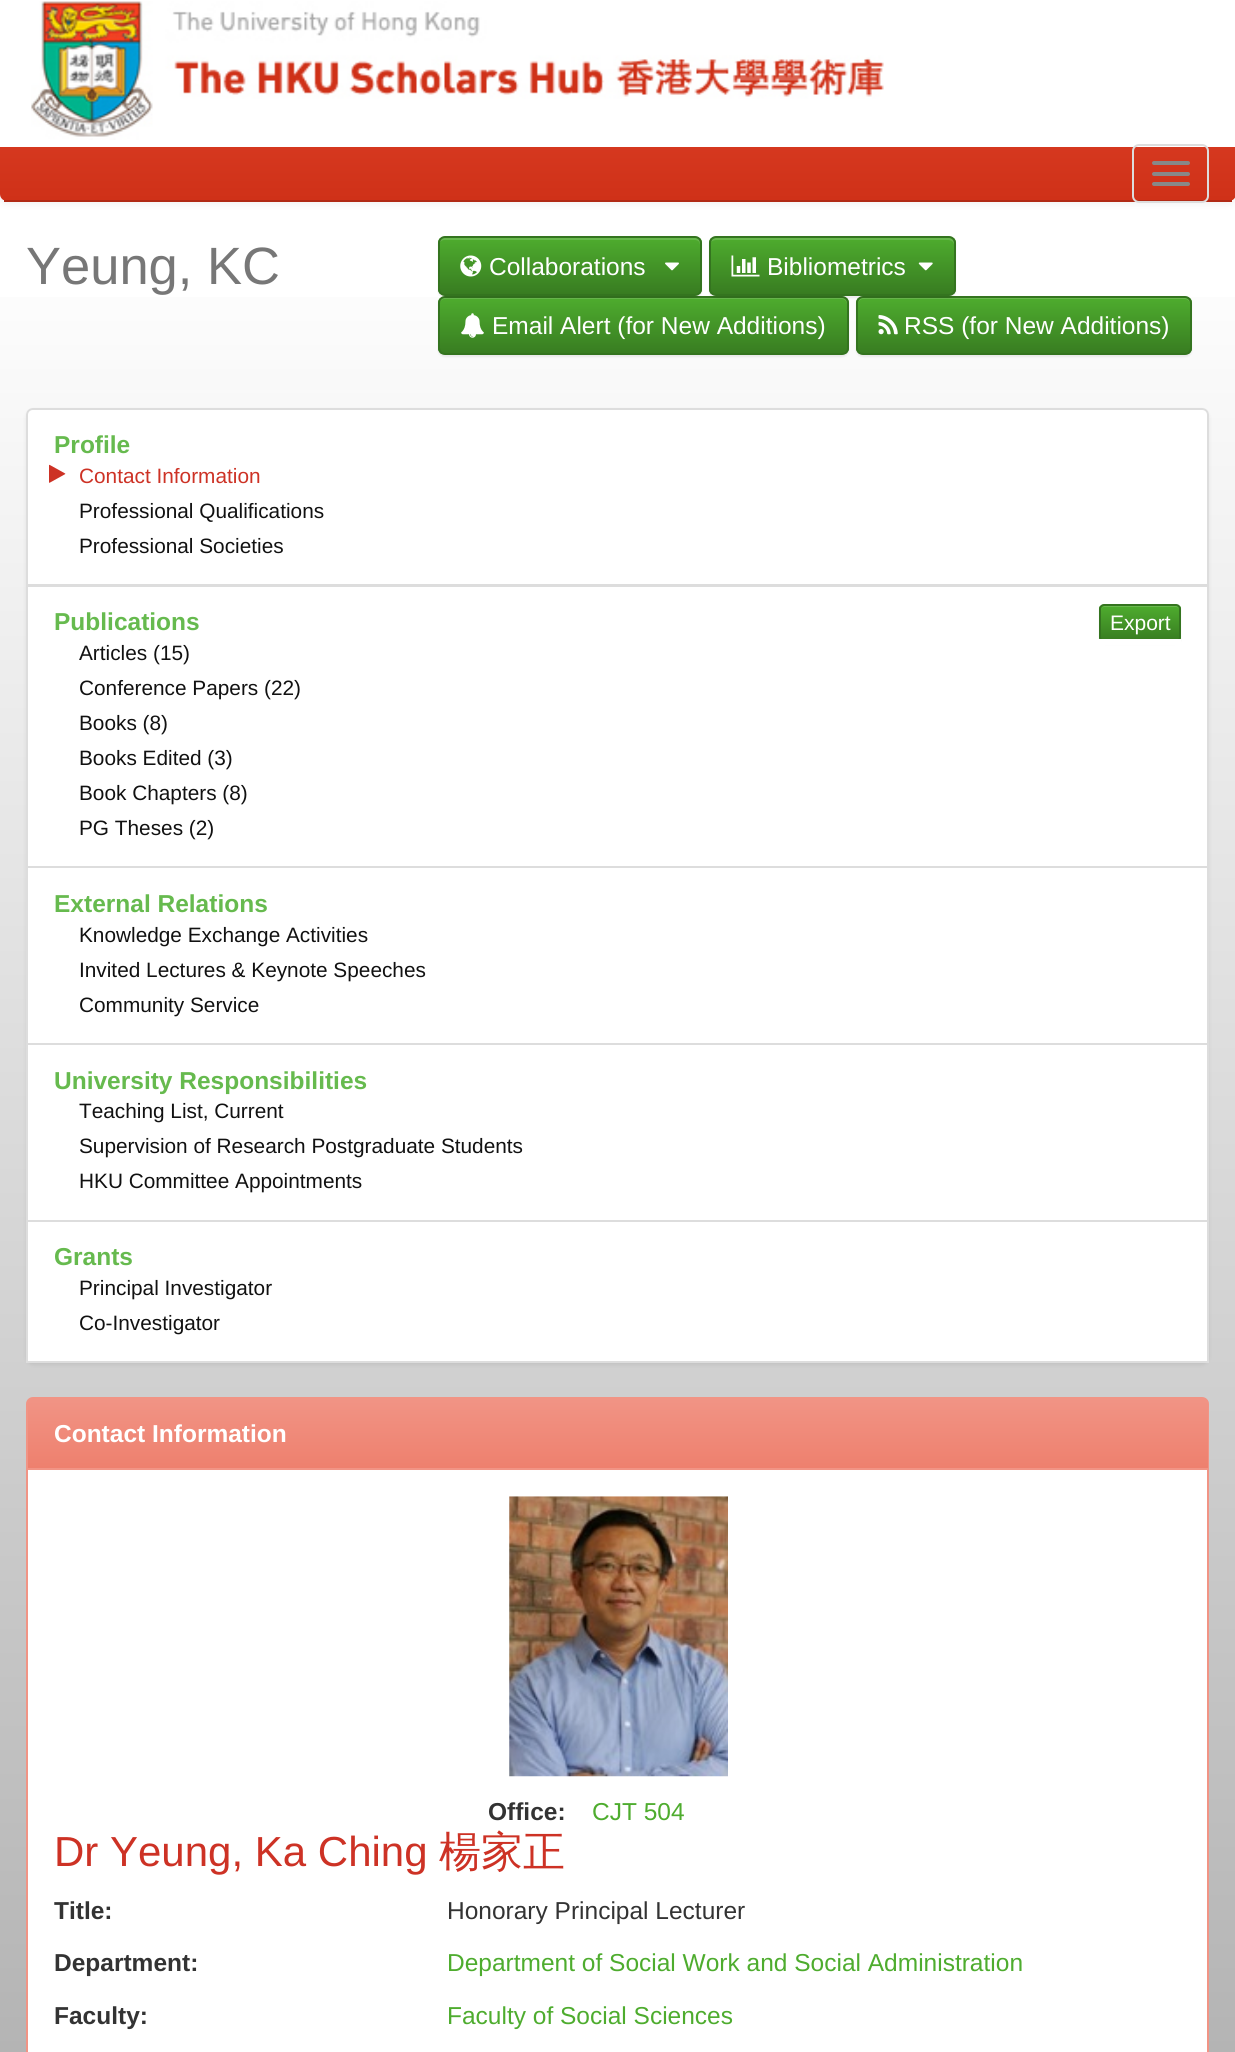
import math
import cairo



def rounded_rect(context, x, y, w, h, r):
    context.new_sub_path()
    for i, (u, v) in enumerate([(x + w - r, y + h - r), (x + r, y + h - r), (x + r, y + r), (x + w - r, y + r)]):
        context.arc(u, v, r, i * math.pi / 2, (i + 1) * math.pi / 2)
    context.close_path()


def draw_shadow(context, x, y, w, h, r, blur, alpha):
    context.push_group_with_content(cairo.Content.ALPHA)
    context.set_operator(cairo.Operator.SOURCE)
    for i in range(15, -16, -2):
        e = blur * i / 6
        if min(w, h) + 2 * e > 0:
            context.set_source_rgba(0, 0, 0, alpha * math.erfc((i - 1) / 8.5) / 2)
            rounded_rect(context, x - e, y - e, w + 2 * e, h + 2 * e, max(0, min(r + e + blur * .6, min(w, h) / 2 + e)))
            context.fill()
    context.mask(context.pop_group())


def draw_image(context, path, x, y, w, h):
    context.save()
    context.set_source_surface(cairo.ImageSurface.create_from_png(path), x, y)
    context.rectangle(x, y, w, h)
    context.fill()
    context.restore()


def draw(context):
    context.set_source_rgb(1, 1, 1)
    context.paint()
    context.set_source_rgb(0, 0, 0)
    draw_shadow(context, 0, 2, 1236, 201, 7, 4.5, 0.07)
    context.save()
    rounded_rect(context, 0, 0, 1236, 201, 7)
    context.clip()
    gradient = cairo.LinearGradient(618, 0, 618, 200)
    gradient.add_color_stop_rgba(0, 231 / 255, 75 / 255, 51 / 255, 1)
    gradient.add_color_stop_rgba(1, 207 / 255, 49 / 255, 24 / 255, 1)
    context.set_source(gradient)
    context.new_path()
    context.move_to(7, 0)
    context.line_to(1229, 0)
    context.curve_to(1233, 0, 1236, 3, 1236, 7)
    context.line_to(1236, 200)
    context.line_to(0, 200)
    context.line_to(0, 7)
    context.curve_to(0, 3, 3, 0, 7, 0)
    context.close_path()
    context.fill()
    context.restore()
    context.set_source_rgb(177 / 255, 42 / 255, 21 / 255)
    context.rectangle(4, 200, 1228, 2)
    context.fill()
    context.set_source_rgb(1, 1, 1)
    context.rectangle(0, 0, 1235, 147)
    context.fill()
    draw_image(context, "images/1.png", 31, 1, 853, 139)
    rounded_rect(context, 1133, 145, 75, 57, 6)
    context.set_source_rgb(221 / 255, 221 / 255, 221 / 255)
    context.stroke()
    context.set_source_rgb(136 / 255, 136 / 255, 136 / 255)
    rounded_rect(context, 1152, 161, 38, 4, 2)
    context.fill()
    rounded_rect(context, 1152, 172, 38, 4, 2)
    context.fill()
    rounded_rect(context, 1152, 182, 38, 4, 2)
    context.fill()
    gradient = cairo.LinearGradient(618, 236, 618, 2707)
    gradient.add_color_stop_rgba(0, 1, 1, 1, 1)
    gradient.add_color_stop_rgba(1, 153 / 255, 153 / 255, 153 / 255, 1)
    context.set_source(gradient)
    context.rectangle(0, 297, 1235, 1755)
    context.fill()
    context.set_source_rgb(0, 0, 0)
    draw_shadow(context, 438, 298, 411, 59, 7, 1, 0.07)
    context.save()
    rounded_rect(context, 438, 296, 411, 59, 7)
    context.clip()
    gradient = cairo.LinearGradient(643, 298, 643, 354)
    gradient.add_color_stop_rgba(0, 78 / 255, 172 / 255, 46 / 255, 1)
    gradient.add_color_stop_rgba(1, 56 / 255, 124 / 255, 33 / 255, 1)
    context.set_source(gradient)
    context.rectangle(438, 298, 411, 56)
    context.fill()
    context.restore()
    context.set_source_rgba(1, 1, 1, 0.15)
    context.new_path()
    context.move_to(444, 299)
    context.line_to(842, 299)
    context.curve_to(845, 299, 847, 302, 847, 304)
    context.line_to(847, 303)
    context.curve_to(847, 300, 845, 298, 842, 298)
    context.line_to(444, 298)
    context.curve_to(441, 298, 439, 300, 439, 303)
    context.line_to(439, 304)
    context.curve_to(439, 302, 442, 299, 444, 299)
    context.close_path()
    context.fill()
    rounded_rect(context, 439, 297, 409, 57, 6)
    context.set_source_rgb(52 / 255, 116 / 255, 31 / 255)
    context.stroke()
    context.set_source_rgb(0, 0, 0)
    draw_shadow(context, 438, 238, 264, 60, 7, 1, 0.07)
    context.save()
    rounded_rect(context, 438, 236, 264, 60, 7)
    context.clip()
    gradient = cairo.LinearGradient(570, 238, 570, 294)
    gradient.add_color_stop_rgba(0, 78 / 255, 172 / 255, 46 / 255, 1)
    gradient.add_color_stop_rgba(1, 56 / 255, 124 / 255, 33 / 255, 1)
    context.set_source(gradient)
    context.rectangle(438, 238, 264, 56)
    context.fill()
    context.restore()
    context.set_source_rgba(1, 1, 1, 0.15)
    context.new_path()
    context.move_to(444, 240)
    context.line_to(695, 240)
    context.curve_to(698, 240, 700, 242, 700, 245)
    context.line_to(700, 243)
    context.curve_to(700, 240, 698, 238, 695, 238)
    context.line_to(444, 238)
    context.curve_to(441, 238, 439, 240, 439, 243)
    context.line_to(439, 245)
    context.curve_to(439, 242, 442, 240, 444, 240)
    context.close_path()
    context.fill()
    rounded_rect(context, 439, 237, 262, 58, 6)
    context.set_source_rgb(52 / 255, 116 / 255, 31 / 255)
    context.stroke()
    draw_image(context, "images/2.png", 460, 255, 22, 22)
    draw_image(context, "images/3.png", 665, 262, 14, 9)
    context.set_source_rgb(0, 0, 0)
    draw_shadow(context, 856, 298, 336, 59, 7, 1, 0.07)
    context.save()
    rounded_rect(context, 856, 296, 336, 59, 7)
    context.clip()
    gradient = cairo.LinearGradient(1024, 298, 1024, 354)
    gradient.add_color_stop_rgba(0, 78 / 255, 172 / 255, 46 / 255, 1)
    gradient.add_color_stop_rgba(1, 56 / 255, 124 / 255, 33 / 255, 1)
    context.set_source(gradient)
    context.rectangle(856, 298, 336, 56)
    context.fill()
    context.restore()
    context.set_source_rgb(105 / 255, 184 / 255, 77 / 255)
    context.new_path()
    context.move_to(863, 299)
    context.line_to(1185, 299)
    context.curve_to(1188, 299, 1190, 302, 1190, 304)
    context.curve_to(1190, 301, 1188, 298, 1185, 298)
    context.line_to(863, 298)
    context.curve_to(860, 298, 858, 301, 858, 304)
    context.curve_to(858, 302, 860, 299, 863, 299)
    context.close_path()
    context.fill()
    rounded_rect(context, 857, 297, 334, 57, 6)
    context.set_source_rgb(52 / 255, 116 / 255, 31 / 255)
    context.stroke()
    context.set_source_rgb(0, 0, 0)
    draw_shadow(context, 709, 238, 247, 60, 7, 1, 0.07)
    context.save()
    rounded_rect(context, 709, 236, 247, 60, 7)
    context.clip()
    gradient = cairo.LinearGradient(832, 238, 832, 294)
    gradient.add_color_stop_rgba(0, 78 / 255, 172 / 255, 46 / 255, 1)
    gradient.add_color_stop_rgba(1, 56 / 255, 124 / 255, 33 / 255, 1)
    context.set_source(gradient)
    context.rectangle(709, 238, 247, 56)
    context.fill()
    context.restore()
    context.set_source_rgba(1, 1, 1, 0.15)
    context.new_path()
    context.move_to(716, 240)
    context.line_to(948, 240)
    context.curve_to(951, 240, 954, 242, 954, 245)
    context.line_to(954, 243)
    context.curve_to(954, 240, 952, 238, 949, 238)
    context.line_to(716, 238)
    context.curve_to(714, 238, 711, 240, 711, 242)
    context.curve_to(712, 241, 714, 240, 716, 240)
    context.close_path()
    context.fill()
    rounded_rect(context, 710, 237, 245, 58, 6)
    context.set_source_rgb(52 / 255, 116 / 255, 31 / 255)
    context.stroke()
    draw_image(context, "images/4.png", 731, 255, 29, 22)
    draw_image(context, "images/5.png", 918, 262, 15, 9)
    draw_image(context, "images/6.png", 461, 313, 23, 25)
    draw_image(context, "images/7.png", 878, 315, 20, 20)
    context.set_source_rgb(0, 0, 0)
    draw_shadow(context, 26, 410, 1183, 955, 7, 2, 0.07)
    context.set_source_rgb(1, 1, 1)
    rounded_rect(context, 26, 408, 1183, 955, 7)
    context.fill()
    context.rectangle(27, 586, 1181, 281)
    context.set_source_rgb(221 / 255, 221 / 255, 221 / 255)
    context.stroke()
    context.set_source_rgb(1, 1, 1)
    context.new_path()
    context.move_to(33, 409)
    context.line_to(1202, 409)
    context.curve_to(1205.5, 409, 1208, 411.5, 1208, 415)
    context.line_to(1208, 585)
    context.line_to(27, 585)
    context.line_to(27, 415)
    context.curve_to(27, 411.5, 29.5, 409, 33, 409)
    context.close_path()
    context.fill_preserve()
    context.set_source_rgb(221 / 255, 221 / 255, 221 / 255)
    context.stroke()
    draw_image(context, "images/8.png", 49, 464, 17, 19)
    context.set_source_rgb(0, 0, 0)
    draw_shadow(context, 1099, 606, 82, 38, 5, 1, 0.07)
    context.save()
    rounded_rect(context, 1099, 604, 82, 38, 5)
    context.clip()
    gradient = cairo.LinearGradient(1140, 606, 1140, 641)
    gradient.add_color_stop_rgba(0, 78 / 255, 172 / 255, 46 / 255, 1)
    gradient.add_color_stop_rgba(1, 56 / 255, 124 / 255, 33 / 255, 1)
    context.set_source(gradient)
    context.rectangle(1099, 606, 82, 33)
    context.fill()
    context.restore()
    context.set_source_rgb(105 / 255, 184 / 255, 77 / 255)
    context.new_path()
    context.move_to(1104, 607)
    context.line_to(1176, 607)
    context.curve_to(1178, 607, 1180, 609, 1180, 611)
    context.curve_to(1180, 603, 1169, 606, 1164, 606)
    context.line_to(1117, 606)
    context.curve_to(1112, 606, 1101, 603, 1101, 611)
    context.curve_to(1101, 609, 1102, 607, 1104, 607)
    context.close_path()
    context.fill()
    rounded_rect(context, 1100, 605, 80, 36, 4)
    context.set_source_rgb(52 / 255, 116 / 255, 31 / 255)
    context.stroke()
    context.set_source_rgb(1, 1, 1)
    context.rectangle(1098, 639, 83, 6)
    context.fill()
    context.rectangle(27, 867, 1181, 177)
    context.set_source_rgb(221 / 255, 221 / 255, 221 / 255)
    context.stroke()
    context.rectangle(27, 1044, 1181, 177)
    context.stroke()
    context.rectangle(27, 1221, 1181, 141)
    context.stroke()
    context.set_source_rgb(1, 1, 1)
    rounded_rect(context, 27, 1398, 1181, 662, 6)
    context.fill_preserve()
    context.set_source_rgb(241 / 255, 148 / 255, 133 / 255)
    context.stroke()
    context.new_path()
    context.move_to(33, 1398)
    context.line_to(1203, 1398)
    context.curve_to(1206, 1398, 1208, 1400, 1208, 1403)
    context.line_to(1208, 1470)
    context.line_to(28, 1470)
    context.line_to(28, 1403)
    context.curve_to(28, 1400, 30, 1398, 33, 1398)
    context.close_path()
    context.fill()
    gradient = cairo.LinearGradient(618, 1398, 618, 1468)
    gradient.add_color_stop_rgba(0, 241 / 255, 148 / 255, 133 / 255, 1)
    gradient.add_color_stop_rgba(1, 238 / 255, 128 / 255, 110 / 255, 1)
    context.set_source(gradient)
    context.new_path()
    context.move_to(33, 1398)
    context.line_to(1203, 1398)
    context.curve_to(1206, 1398, 1208, 1400, 1208, 1403)
    context.line_to(1208, 1468)
    context.line_to(28, 1468)
    context.line_to(28, 1403)
    context.curve_to(28, 1400, 30, 1398, 33, 1398)
    context.close_path()
    context.fill()
    draw_image(context, "images/9.png", 509, 1496, 219, 281)
    context.select_font_face("Liberation Sans")
    context.set_font_size(52.5)
    context.set_source_rgb(119 / 255, 119 / 255, 119 / 255)
    context.move_to(26, 284)
    context.show_text("Yeung, KC")
    context.set_font_size(24.5)
    context.set_source_rgb(1, 1, 1)
    context.move_to(489, 275)
    context.show_text("Collaborations")
    context.move_to(767, 275)
    context.show_text("Bibliometrics")
    context.move_to(492, 334)
    context.show_text("Email Alert (for New Additions)")
    context.move_to(904, 334)
    context.show_text("RSS (for New Additions)")
    context.select_font_face("Liberation Sans", cairo.FontSlant.NORMAL, cairo.FontWeight.BOLD)
    context.set_source_rgb(102 / 255, 186 / 255, 78 / 255)
    context.move_to(54, 453)
    context.show_text("Profile")
    context.select_font_face("Liberation Sans")
    context.set_font_size(20.8)
    context.set_source_rgb(205 / 255, 50 / 255, 37 / 255)
    context.move_to(79, 483)
    context.show_text("Contact Information")
    context.set_source_rgb(17 / 255, 17 / 255, 17 / 255)
    context.move_to(79, 518)
    context.show_text("Professional Qualifications")
    context.move_to(79, 553)
    context.show_text("Professional Societies")
    context.select_font_face("Liberation Sans", cairo.FontSlant.NORMAL, cairo.FontWeight.BOLD)
    context.set_font_size(24.5)
    context.set_source_rgb(102 / 255, 186 / 255, 78 / 255)
    context.move_to(54, 630)
    context.show_text("Publications")
    context.select_font_face("Liberation Sans")
    context.set_font_size(20.8)
    context.set_source_rgb(17 / 255, 17 / 255, 17 / 255)
    context.move_to(79, 660)
    context.show_text("Articles (15)")
    context.move_to(79, 695)
    context.show_text("Conference Papers (22)")
    context.move_to(79, 730)
    context.show_text("Books (8)")
    context.move_to(79, 765)
    context.show_text("Books Edited (3)")
    context.move_to(79, 800)
    context.show_text("Book Chapters (8)")
    context.move_to(79, 835)
    context.show_text("PG Theses (2)")
    context.set_font_size(21)
    context.set_source_rgb(1, 1, 1)
    context.move_to(1110, 630)
    context.show_text("Export")
    context.select_font_face("Liberation Sans", cairo.FontSlant.NORMAL, cairo.FontWeight.BOLD)
    context.set_font_size(24.5)
    context.set_source_rgb(102 / 255, 186 / 255, 78 / 255)
    context.move_to(54, 912)
    context.show_text("External Relations")
    context.select_font_face("Liberation Sans")
    context.set_font_size(20.8)
    context.set_source_rgb(17 / 255, 17 / 255, 17 / 255)
    context.move_to(79, 942)
    context.show_text("Knowledge Exchange Activities")
    context.move_to(79, 977)
    context.show_text("Invited Lectures & Keynote Speeches")
    context.move_to(79, 1012)
    context.show_text("Community Service")
    context.select_font_face("Liberation Sans", cairo.FontSlant.NORMAL, cairo.FontWeight.BOLD)
    context.set_font_size(24.5)
    context.set_source_rgb(102 / 255, 186 / 255, 78 / 255)
    context.move_to(54, 1089)
    context.show_text("University Responsibilities")
    context.select_font_face("Liberation Sans")
    context.set_font_size(20.8)
    context.set_source_rgb(17 / 255, 17 / 255, 17 / 255)
    context.move_to(79, 1118)
    context.show_text("Teaching List, Current")
    context.move_to(79, 1153)
    context.show_text("Supervision of Research Postgraduate Students")
    context.move_to(79, 1188)
    context.show_text("HKU Committee Appointments")
    context.select_font_face("Liberation Sans", cairo.FontSlant.NORMAL, cairo.FontWeight.BOLD)
    context.set_font_size(24.5)
    context.set_source_rgb(102 / 255, 186 / 255, 78 / 255)
    context.move_to(54, 1265)
    context.show_text("Grants")
    context.select_font_face("Liberation Sans")
    context.set_font_size(20.8)
    context.set_source_rgb(17 / 255, 17 / 255, 17 / 255)
    context.move_to(79, 1295)
    context.show_text("Principal Investigator")
    context.move_to(79, 1330)
    context.show_text("Co-Investigator")
    context.select_font_face("Liberation Sans", cairo.FontSlant.NORMAL, cairo.FontWeight.BOLD)
    context.set_font_size(24.5)
    context.set_source_rgb(1, 1, 1)
    context.move_to(54, 1442)
    context.show_text("Contact Information")
    context.set_source_rgb(51 / 255, 51 / 255, 51 / 255)
    context.move_to(488, 1820)
    context.show_text("Office:")
    context.select_font_face("Liberation Sans")
    context.set_source_rgb(78 / 255, 172 / 255, 46 / 255)
    context.move_to(592, 1820)
    context.show_text("CJT 504")
    context.set_font_size(42)
    context.set_source_rgb(205 / 255, 50 / 255, 37 / 255)
    context.move_to(54, 1866)
    context.show_text("Dr Yeung, Ka Ching")
    context.select_font_face("WenQuanYi Zen Hei Medium")
    context.move_to(439, 1866)
    context.show_text("楊家正")
    context.select_font_face("Liberation Sans", cairo.FontSlant.NORMAL, cairo.FontWeight.BOLD)
    context.set_font_size(24.5)
    context.set_source_rgb(51 / 255, 51 / 255, 51 / 255)
    context.move_to(54, 1919)
    context.show_text("Title:")
    context.select_font_face("Liberation Sans")
    context.move_to(447, 1919)
    context.show_text("Honorary Principal Lecturer")
    context.select_font_face("Liberation Sans", cairo.FontSlant.NORMAL, cairo.FontWeight.BOLD)
    context.move_to(54, 1971)
    context.show_text("Department:")
    context.select_font_face("Liberation Sans")
    context.set_source_rgb(78 / 255, 172 / 255, 46 / 255)
    context.move_to(447, 1971)
    context.show_text("Department of Social Work and Social Administration")
    context.select_font_face("Liberation Sans", cairo.FontSlant.NORMAL, cairo.FontWeight.BOLD)
    context.set_source_rgb(51 / 255, 51 / 255, 51 / 255)
    context.move_to(54, 2024)
    context.show_text("Faculty:")
    context.select_font_face("Liberation Sans")
    context.set_source_rgb(78 / 255, 172 / 255, 46 / 255)
    context.move_to(447, 2024)
    context.show_text("Faculty of Social Sciences")


surface = cairo.ImageSurface(cairo.Format.RGB24, 1235, 2052)
context = cairo.Context(surface)
options = cairo.FontOptions()
options.set_hint_metrics(cairo.HintMetrics.OFF)
options.set_hint_style(cairo.HintStyle.NONE)
context.set_font_options(options)
context.set_miter_limit(4)
draw(context)
surface.write_to_png("out.png")
